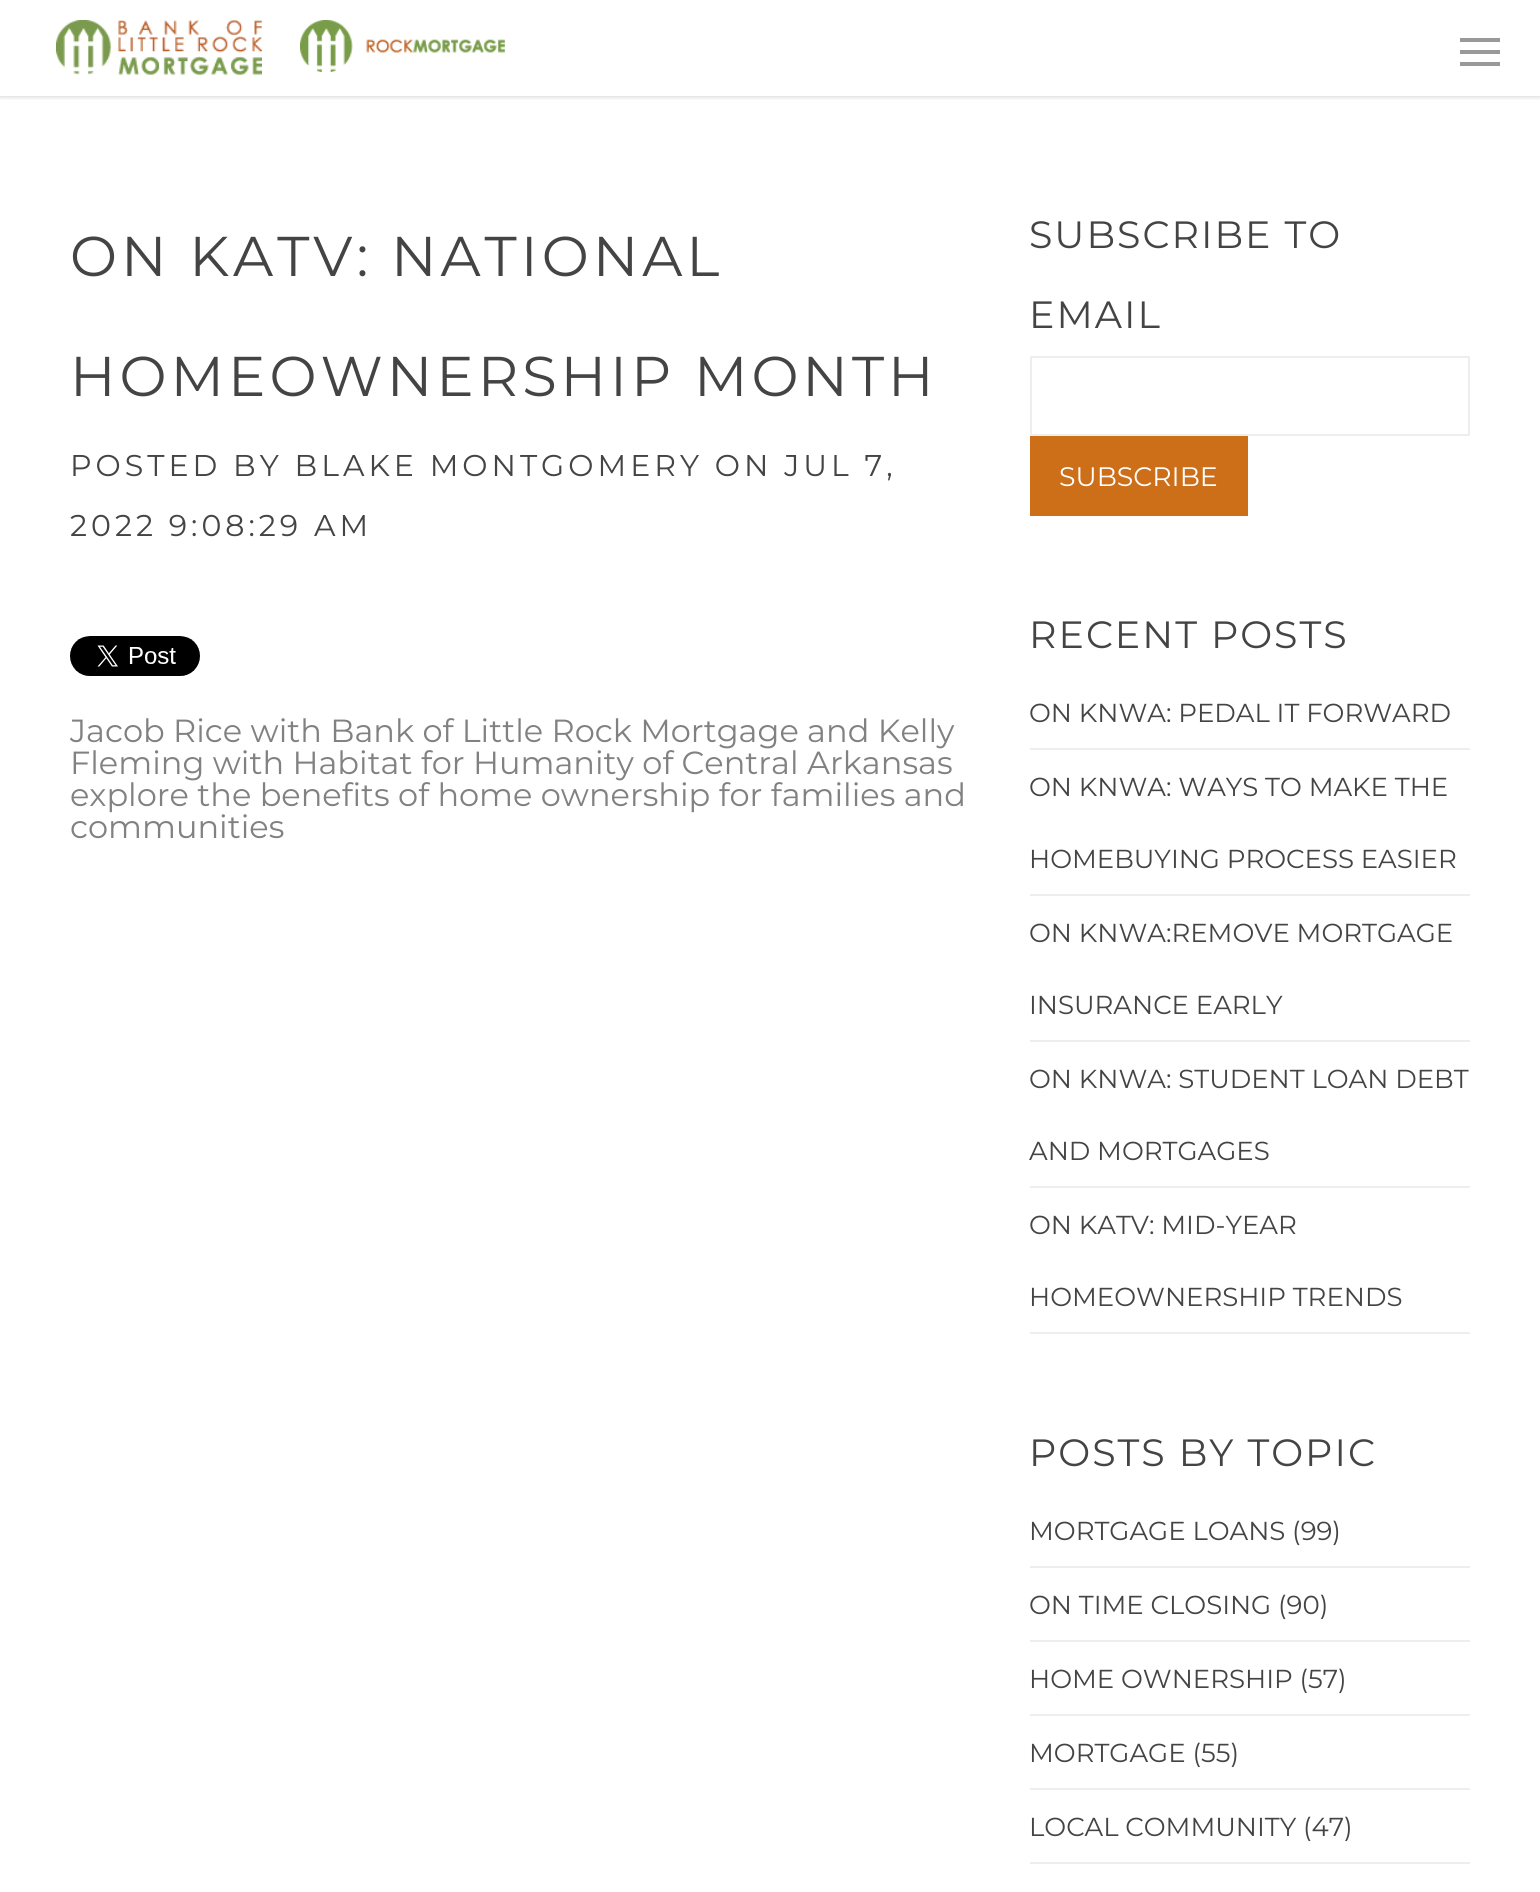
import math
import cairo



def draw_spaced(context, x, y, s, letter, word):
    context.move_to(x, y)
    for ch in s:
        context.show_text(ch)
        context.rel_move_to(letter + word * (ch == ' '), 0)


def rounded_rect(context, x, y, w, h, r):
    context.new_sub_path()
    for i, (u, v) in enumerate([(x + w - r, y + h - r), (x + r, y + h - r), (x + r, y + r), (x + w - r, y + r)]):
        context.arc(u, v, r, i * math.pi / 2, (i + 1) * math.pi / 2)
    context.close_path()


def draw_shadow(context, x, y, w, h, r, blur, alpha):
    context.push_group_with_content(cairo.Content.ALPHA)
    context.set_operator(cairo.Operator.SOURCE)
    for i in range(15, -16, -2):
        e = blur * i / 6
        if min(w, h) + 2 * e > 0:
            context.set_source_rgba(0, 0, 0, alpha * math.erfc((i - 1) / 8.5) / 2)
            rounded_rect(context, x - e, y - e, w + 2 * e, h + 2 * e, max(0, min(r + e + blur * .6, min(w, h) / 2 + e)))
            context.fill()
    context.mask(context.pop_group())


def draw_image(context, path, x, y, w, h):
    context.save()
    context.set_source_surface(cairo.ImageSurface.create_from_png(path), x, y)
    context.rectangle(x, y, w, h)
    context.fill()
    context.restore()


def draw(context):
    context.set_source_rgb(1, 1, 1)
    context.paint()
    context.save()
    context.rectangle(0, 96, 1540, 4)
    context.clip()
    context.set_source_rgb(0, 0, 0)
    draw_shadow(context, 0, 0, 1540, 96, 0, 3, 0.22)
    context.restore()
    draw_image(context, "images/1.png", 56, 20, 206, 55)
    draw_image(context, "images/2.png", 300, 20, 205, 52)
    context.set_source_rgb(153 / 255, 153 / 255, 153 / 255)
    context.rectangle(1460, 50, 40, 4)
    context.fill()
    context.rectangle(1460, 38, 40, 4)
    context.fill()
    context.rectangle(1460, 62, 40, 4)
    context.fill()
    draw_image(context, "images/3.png", 70, 636, 130, 40)
    context.rectangle(1031, 357, 438, 78)
    context.set_source_rgb(238 / 255, 238 / 255, 238 / 255)
    context.stroke()
    context.set_source_rgb(205 / 255, 111 / 255, 25 / 255)
    context.rectangle(1030, 436, 218, 80)
    context.fill()
    context.set_source_rgb(238 / 255, 238 / 255, 238 / 255)
    context.rectangle(1030, 748, 440, 2)
    context.fill()
    context.rectangle(1030, 894, 440, 2)
    context.fill()
    context.rectangle(1030, 1040, 440, 2)
    context.fill()
    context.rectangle(1030, 1186, 440, 2)
    context.fill()
    context.rectangle(1030, 1332, 440, 2)
    context.fill()
    context.rectangle(1030, 1566, 440, 2)
    context.fill()
    context.rectangle(1030, 1640, 440, 2)
    context.fill()
    context.rectangle(1030, 1714, 440, 2)
    context.fill()
    context.rectangle(1030, 1788, 440, 2)
    context.fill()
    context.rectangle(1030, 1862, 440, 2)
    context.fill()
    context.select_font_face("Montserrat")
    context.set_font_size(56)
    context.set_source_rgb(68 / 255, 68 / 255, 68 / 255)
    draw_spaced(context, 70, 276, "ON KATV: NATIONAL", 4, 0)
    draw_spaced(context, 70, 396, "HOMEOWNERSHIP MONTH", 4, 0)
    context.set_font_size(30)
    draw_spaced(context, 70, 476, "POSTED BY BLAKE MONTGOMERY ON JUL 7,", 4, 0)
    draw_spaced(context, 70, 536, "2022 9:08:29 AM", 4, 0)
    context.set_font_size(32)
    context.set_source_rgb(129 / 255, 129 / 255, 129 / 255)
    context.move_to(70, 742)
    context.show_text("Jacob Rice with Bank of Little Rock Mortgage and Kelly")
    context.move_to(70, 774)
    context.show_text("Fleming with Habitat for Humanity of Central Arkansas")
    context.move_to(70, 806)
    context.show_text("explore the benefits of home ownership for families and")
    context.move_to(70, 838)
    context.show_text("communities")
    context.set_font_size(38)
    context.set_source_rgb(68 / 255, 68 / 255, 68 / 255)
    draw_spaced(context, 1029, 248, "SUBSCRIBE TO", 2, 0)
    draw_spaced(context, 1029, 328, "EMAIL", 2, 0)
    context.set_font_size(26.75)
    context.set_source_rgb(1, 1, 1)
    context.move_to(1059, 486)
    context.show_text("SUBSCRIBE")
    context.set_font_size(38)
    context.set_source_rgb(68 / 255, 68 / 255, 68 / 255)
    draw_spaced(context, 1029, 648, "RECENT POSTS", 2, 0)
    context.set_font_size(26)
    context.move_to(1029, 722)
    context.show_text("ON KNWA: PEDAL IT FORWARD")
    context.move_to(1029, 796)
    context.show_text("ON KNWA: WAYS TO MAKE THE")
    context.move_to(1029, 868)
    context.show_text("HOMEBUYING PROCESS EASIER")
    context.move_to(1029, 942)
    context.show_text("ON KNWA:REMOVE MORTGAGE")
    context.move_to(1029, 1014)
    context.show_text("INSURANCE EARLY")
    context.move_to(1029, 1088)
    context.show_text("ON KNWA: STUDENT LOAN DEBT")
    context.move_to(1029, 1160)
    context.show_text("AND MORTGAGES")
    context.move_to(1029, 1234)
    context.show_text("ON KATV: MID-YEAR")
    context.move_to(1029, 1306)
    context.show_text("HOMEOWNERSHIP TRENDS")
    context.set_font_size(38)
    draw_spaced(context, 1029, 1466, "POSTS BY TOPIC", 2, 0)
    context.set_font_size(26)
    context.move_to(1029, 1540)
    context.show_text("MORTGAGE LOANS (99)")
    context.move_to(1029, 1614)
    context.show_text("ON TIME CLOSING (90)")
    context.move_to(1029, 1688)
    context.show_text("HOME OWNERSHIP (57)")
    context.move_to(1029, 1762)
    context.show_text("MORTGAGE (55)")
    context.move_to(1029, 1836)
    context.show_text("LOCAL COMMUNITY (47)")


surface = cairo.ImageSurface(cairo.Format.RGB24, 1540, 1892)
context = cairo.Context(surface)
options = cairo.FontOptions()
options.set_hint_metrics(cairo.HintMetrics.OFF)
options.set_hint_style(cairo.HintStyle.NONE)
context.set_font_options(options)
context.set_miter_limit(4)
draw(context)
surface.write_to_png("out.png")
